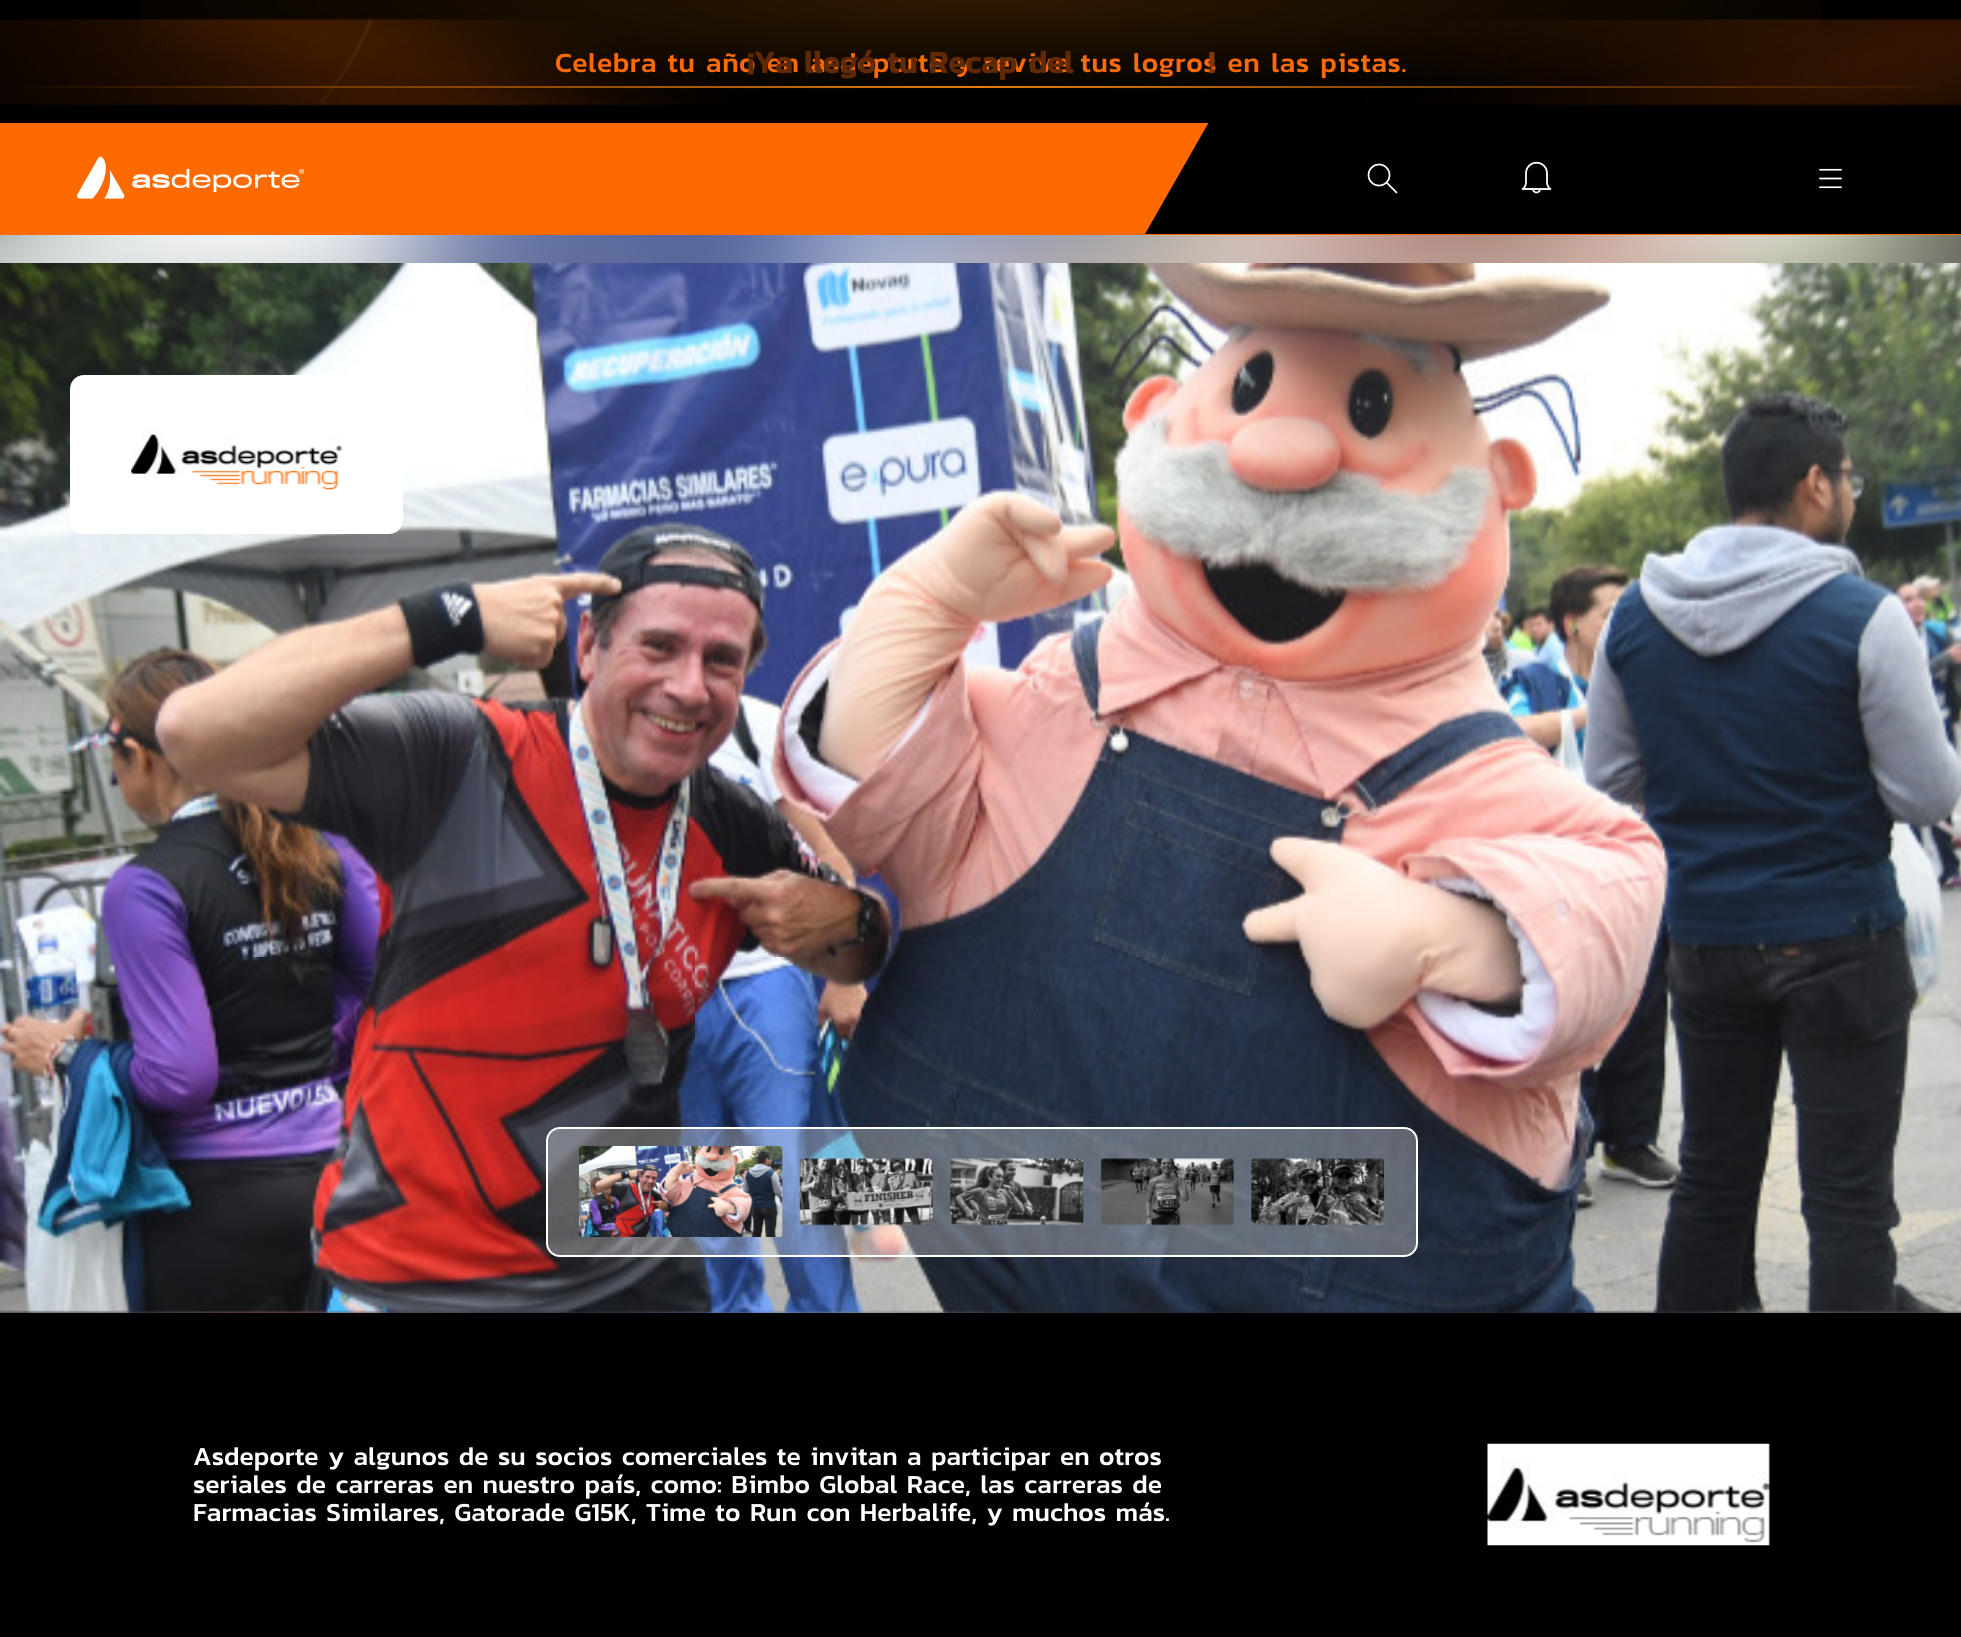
import math
import cairo



def draw_spaced(context, x, y, s, letter, word):
    context.move_to(x, y)
    for ch in s:
        context.show_text(ch)
        context.rel_move_to(letter + word * (ch == ' '), 0)


def rounded_rect(context, x, y, w, h, r):
    context.new_sub_path()
    for i, (u, v) in enumerate([(x + w - r, y + h - r), (x + r, y + h - r), (x + r, y + r), (x + w - r, y + r)]):
        context.arc(u, v, r, i * math.pi / 2, (i + 1) * math.pi / 2)
    context.close_path()


def draw_image(context, path, x, y, w, h):
    context.save()
    context.set_source_surface(cairo.ImageSurface.create_from_png(path), x, y)
    context.rectangle(x, y, w, h)
    context.fill()
    context.restore()


def draw(context):
    context.set_source_rgb(1, 1, 1)
    context.paint()
    context.set_source_rgb(0, 0, 0)
    context.rectangle(0, 0, 1961, 123)
    context.fill()
    draw_image(context, "images/1.png", 0, 18, 1961, 88)
    gradient = cairo.RadialGradient(0, 0, 0, 0, 0, 1)
    gradient.set_matrix(cairo.Matrix(1 / 1373, 0, 0, 1 / 147, -1 * 981 / 1373, -1 * 0 / 147))
    gradient.add_color_stop_rgba(0, 1, 138 / 255, 0, 0.18)
    gradient.add_color_stop_rgba(0.7, 1, 138 / 255, 0, 0)
    context.set_source(gradient)
    context.rectangle(140, 0, 1682, 91)
    context.fill()
    gradient = cairo.LinearGradient(0, 87, 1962, 87)
    gradient.add_color_stop_rgba(0, 1, 138 / 255, 0, 0)
    gradient.add_color_stop_rgba(0.5, 1, 138 / 255, 0, 0.9)
    gradient.add_color_stop_rgba(1, 1, 138 / 255, 0, 0)
    context.set_source(gradient)
    context.rectangle(24, 86, 1915, 2)
    context.fill()
    context.set_source_rgb(1, 106 / 255, 0)
    context.rectangle(0, 123, 1961, 112)
    context.fill()
    draw_image(context, "images/2.png", 77, 156, 227, 43)
    context.set_source_rgb(0, 0, 0)
    context.new_path()
    context.move_to(1209, 122)
    context.line_to(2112, 122)
    context.line_to(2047, 234)
    context.line_to(1145, 234)
    context.close_path()
    context.fill()
    draw_image(context, "images/3.png", 1367, 163, 31, 31)
    draw_image(context, "images/4.png", 1521, 161, 31, 33)
    draw_image(context, "images/5.png", 1819, 168, 23, 21)
    draw_image(context, "images/6.png", 0, 235, 1961, 1078)
    draw_image(context, "images/7.png", 0, 263, 1961, 1050)
    context.set_source_rgba(1, 1, 1, 0.3)
    rounded_rect(context, 547, 1128, 870, 128, 13)
    context.fill_preserve()
    context.set_source_rgb(1, 1, 1)
    context.stroke()
    draw_image(context, "images/8.png", 579, 1146, 204, 91)
    draw_image(context, "images/9.png", 799, 1158, 135, 68)
    draw_image(context, "images/10.png", 950, 1158, 134, 68)
    draw_image(context, "images/11.png", 1100, 1158, 135, 68)
    draw_image(context, "images/12.png", 1251, 1158, 133, 68)
    rounded_rect(context, 70, 375, 333, 159, 14)
    context.fill()
    draw_image(context, "images/13.png", 131, 429, 211, 61)
    context.set_source_rgb(0, 0, 0)
    context.rectangle(0, 1313, 1961, 324)
    context.fill()
    draw_image(context, "images/14.png", 1487, 1443, 283, 103)
    context.select_font_face("Kanit Medium")
    context.set_font_size(28)
    context.set_source_rgb(1, 106 / 255, 0)
    draw_spaced(context, 555, 72, "Celebra tu año en asdeporte y revive tus logros en las pistas.", 0.55, 0)
    context.select_font_face("Kanit", cairo.FontSlant.NORMAL, cairo.FontWeight.BOLD)
    context.set_font_size(31.5)
    context.set_source_rgb(129 / 255, 55 / 255, 0)
    context.move_to(1208, 73)
    context.show_text("!")
    context.set_source_rgb(96 / 255, 41 / 255, 0)
    context.move_to(747, 73)
    context.show_text("¡Ya llegó tu Recap del")
    context.select_font_face("Kanit Medium")
    context.set_font_size(26.25)
    context.set_source_rgb(1, 1, 1)
    context.move_to(193, 1465)
    context.show_text("Asdeporte y algunos de su socios comerciales te invitan a participar en otros")
    context.move_to(193, 1493)
    context.show_text("seriales de carreras en nuestro país, como: Bimbo Global Race, las carreras de")
    context.move_to(193, 1521)
    context.show_text("Farmacias Similares, Gatorade G15K, Time to Run con Herbalife, y muchos más.")


surface = cairo.ImageSurface(cairo.Format.RGB24, 1961, 1637)
context = cairo.Context(surface)
options = cairo.FontOptions()
options.set_hint_metrics(cairo.HintMetrics.OFF)
options.set_hint_style(cairo.HintStyle.NONE)
context.set_font_options(options)
context.set_miter_limit(4)
draw(context)
surface.write_to_png("out.png")
